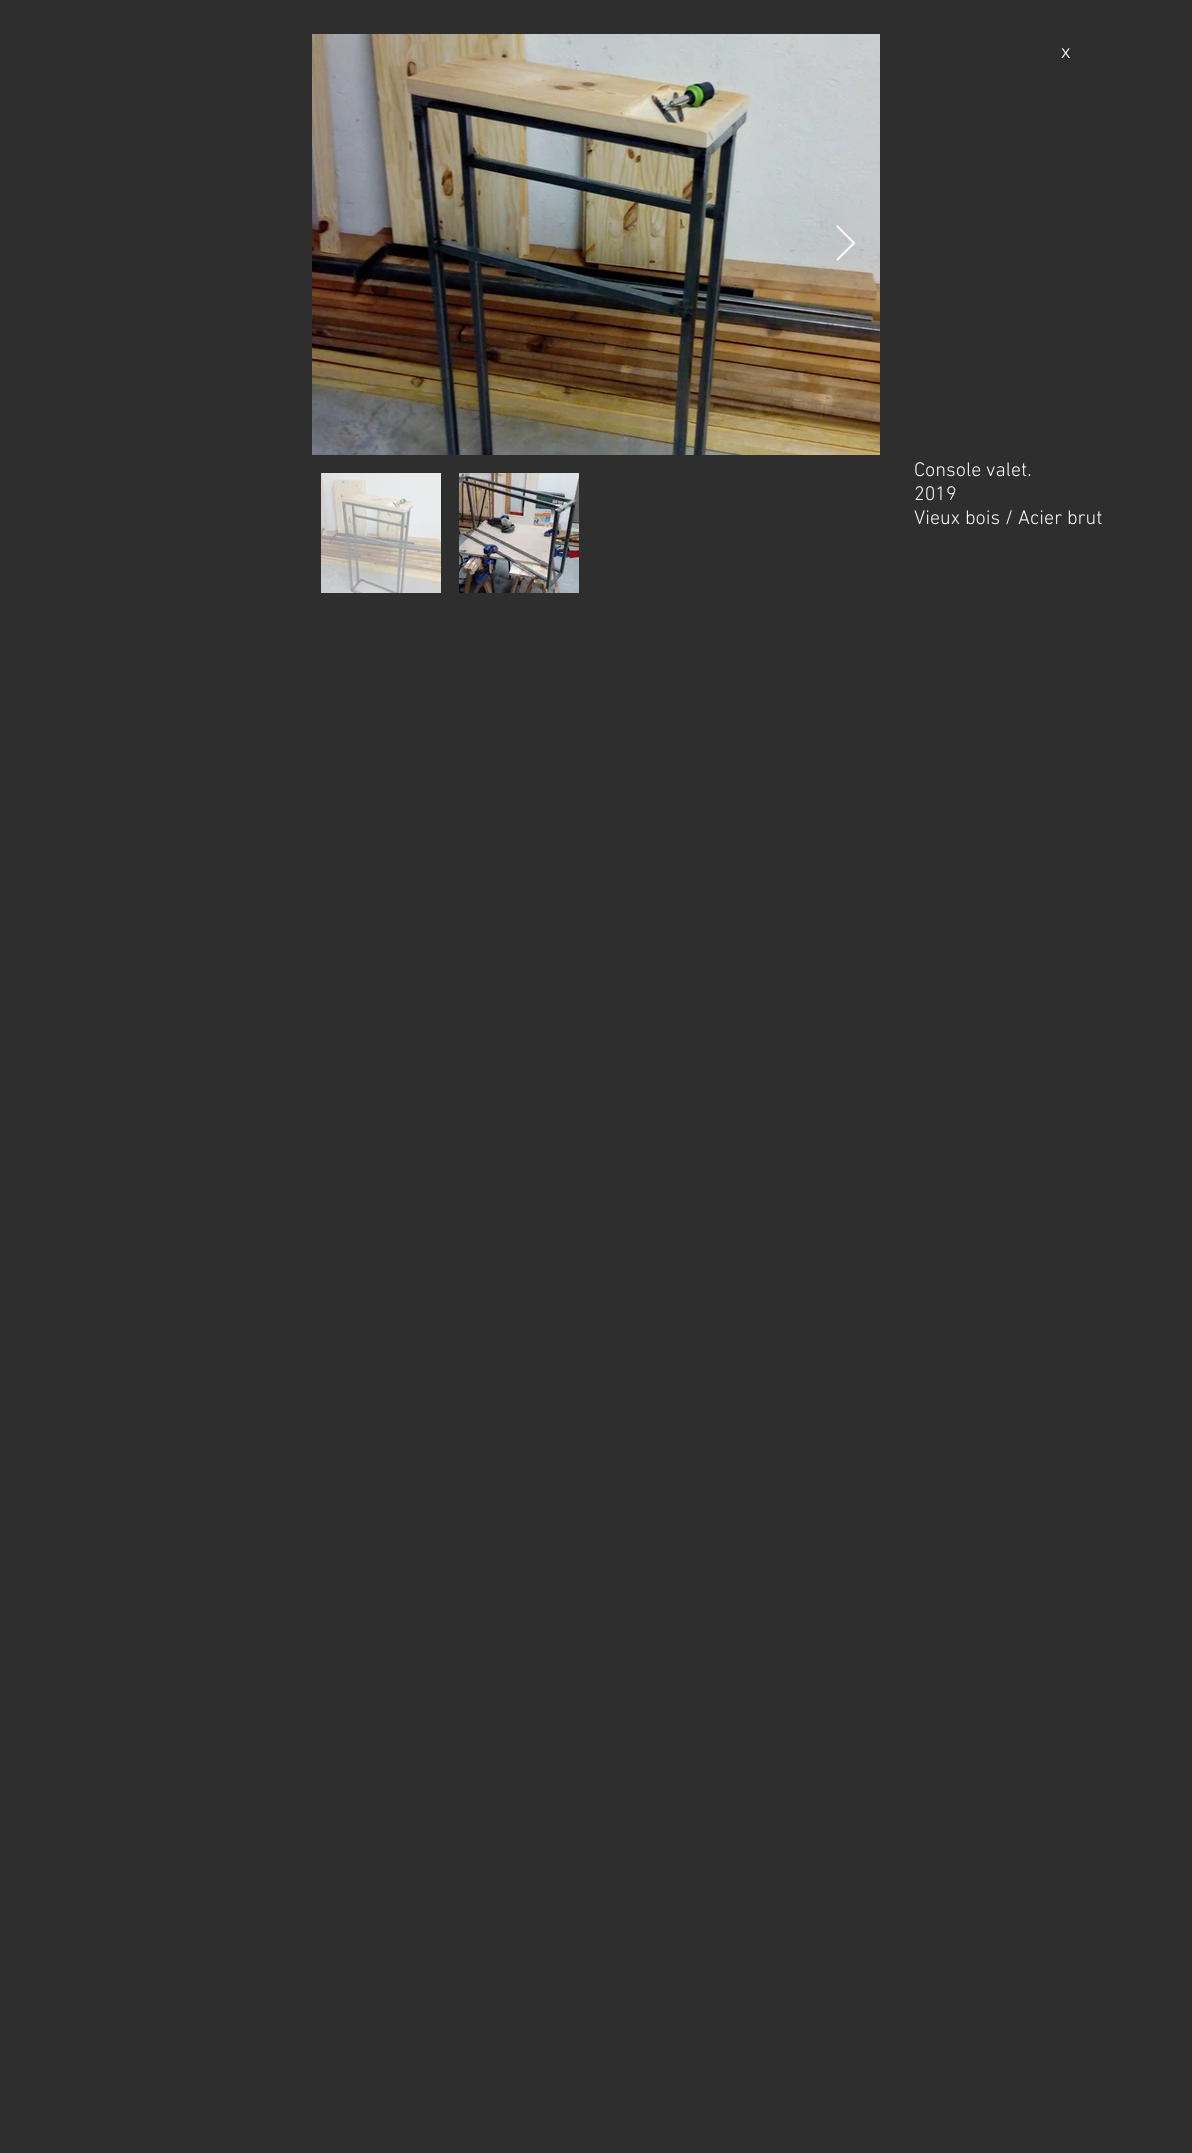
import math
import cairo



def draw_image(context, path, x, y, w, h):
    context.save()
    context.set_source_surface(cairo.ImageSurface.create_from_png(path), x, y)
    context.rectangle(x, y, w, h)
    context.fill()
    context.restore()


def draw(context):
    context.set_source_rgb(47 / 255, 46 / 255, 46 / 255)
    context.paint()
    draw_image(context, "images/1.png", 312, 34, 568, 421)
    context.set_source_rgba(1, 1, 1, 0.9)
    context.new_path()
    context.move_to(836, 226.5)
    context.line_to(837.5, 225)
    context.line_to(855.5, 243)
    context.line_to(837.5, 261)
    context.line_to(836, 259.5)
    context.line_to(852.5, 243)
    context.close_path()
    context.fill()
    draw_image(context, "images/2.png", 321, 473, 120, 120)
    draw_image(context, "images/3.png", 459, 473, 120, 120)
    context.select_font_face("Liberation Sans")
    context.set_font_size(14)
    context.set_source_rgb(1, 1, 1)
    context.move_to(1061, 58)
    context.show_text("X")
    context.select_font_face("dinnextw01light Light")
    context.set_font_size(20)
    context.move_to(914, 476)
    context.show_text("Console valet.")
    context.move_to(914, 500)
    context.show_text("2019")
    context.move_to(914, 524)
    context.show_text("Vieux bois / Acier brut")


surface = cairo.ImageSurface(cairo.Format.RGB24, 1192, 2153)
context = cairo.Context(surface)
options = cairo.FontOptions()
options.set_hint_metrics(cairo.HintMetrics.OFF)
options.set_hint_style(cairo.HintStyle.NONE)
context.set_font_options(options)
context.set_miter_limit(4)
draw(context)
surface.write_to_png("out.png")
